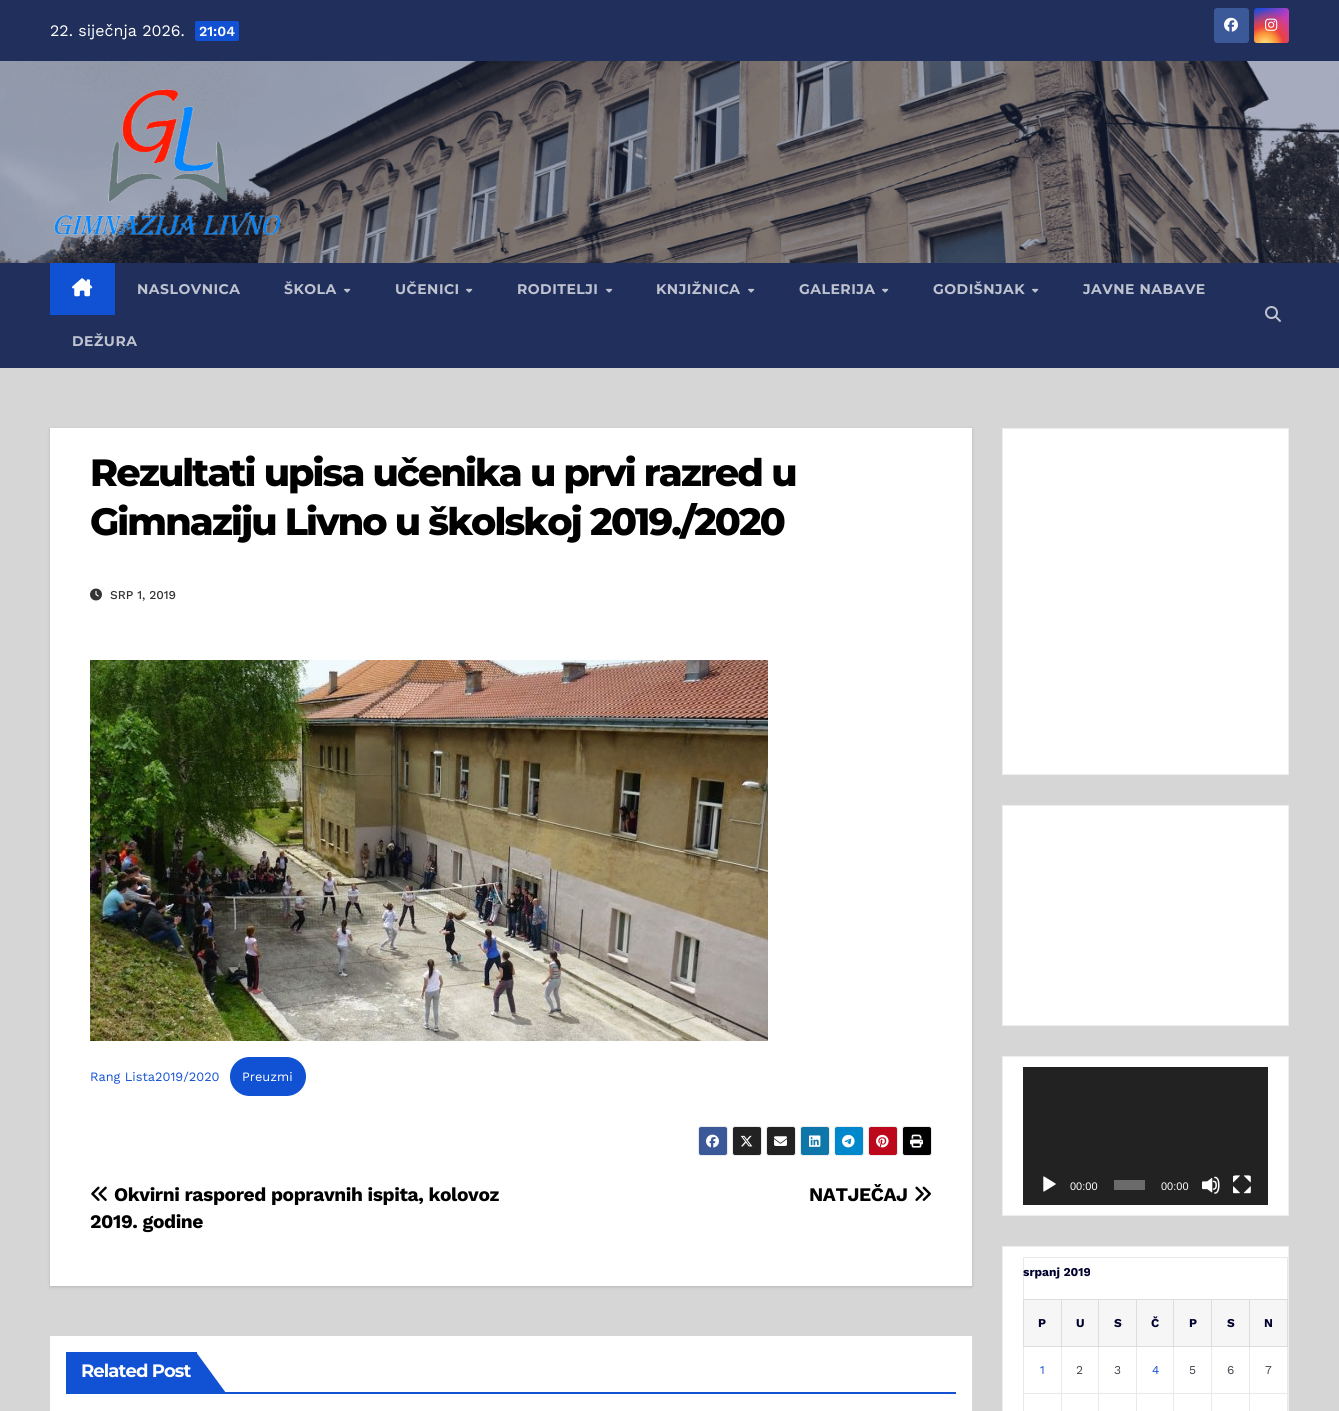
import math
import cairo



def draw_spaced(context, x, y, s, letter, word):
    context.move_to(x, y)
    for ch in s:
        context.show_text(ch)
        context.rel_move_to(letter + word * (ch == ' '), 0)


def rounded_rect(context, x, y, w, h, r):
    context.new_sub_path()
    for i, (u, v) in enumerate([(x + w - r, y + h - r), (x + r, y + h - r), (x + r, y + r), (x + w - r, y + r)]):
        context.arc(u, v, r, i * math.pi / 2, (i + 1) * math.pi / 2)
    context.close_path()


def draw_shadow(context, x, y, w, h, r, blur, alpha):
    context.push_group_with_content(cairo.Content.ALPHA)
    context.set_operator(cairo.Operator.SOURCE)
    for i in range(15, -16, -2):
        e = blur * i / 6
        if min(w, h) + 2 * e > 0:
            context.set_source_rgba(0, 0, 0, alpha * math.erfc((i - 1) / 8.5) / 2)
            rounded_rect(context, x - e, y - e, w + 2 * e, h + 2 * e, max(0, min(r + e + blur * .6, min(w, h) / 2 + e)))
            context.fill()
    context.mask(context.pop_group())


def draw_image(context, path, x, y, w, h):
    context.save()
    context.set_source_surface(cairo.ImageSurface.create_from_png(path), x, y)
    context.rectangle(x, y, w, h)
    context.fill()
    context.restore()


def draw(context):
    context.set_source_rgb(214 / 255, 214 / 255, 214 / 255)
    context.paint()
    context.set_source_rgb(32 / 255, 47 / 255, 91 / 255)
    context.rectangle(0, 0, 1339, 61)
    context.fill()
    context.set_source_rgb(17 / 255, 81 / 255, 211 / 255)
    rounded_rect(context, 195, 21, 44, 20, 2)
    context.fill()
    context.set_source_rgb(59 / 255, 89 / 255, 152 / 255)
    rounded_rect(context, 1214, 8, 35, 35, 3)
    context.fill()
    draw_image(context, "images/1.png", 1224, 17, 14, 15)
    gradient = cairo.LinearGradient(1254, 8, 1289, 43)
    gradient.add_color_stop_rgba(0.12, 35 / 255, 75 / 255, 215 / 255, 1)
    gradient.add_color_stop_rgba(0.58, 195 / 255, 60 / 255, 190 / 255, 1)
    context.set_source(gradient)
    rounded_rect(context, 1254, 8, 35, 35, 3)
    context.fill()
    gradient = cairo.RadialGradient(1265, 45, 0, 1265, 45, 44)
    gradient.add_color_stop_rgba(0, 1, 225 / 255, 125 / 255, 1)
    gradient.add_color_stop_rgba(0.1, 1, 205 / 255, 105 / 255, 1)
    gradient.add_color_stop_rgba(0.28, 250 / 255, 145 / 255, 55 / 255, 1)
    gradient.add_color_stop_rgba(0.42, 235 / 255, 65 / 255, 65 / 255, 1)
    gradient.add_color_stop_rgba(0.82, 235 / 255, 65 / 255, 65 / 255, 0)
    context.set_source(gradient)
    rounded_rect(context, 1254, 8, 35, 35, 3)
    context.fill()
    draw_image(context, "images/2.png", 1265, 18, 13, 13)
    draw_image(context, "images/3.png", 0, 61, 1339, 202)
    draw_image(context, "images/4.png", 54, 89, 227, 147)
    context.set_source_rgb(32 / 255, 47 / 255, 91 / 255)
    context.rectangle(0, 263, 1339, 105)
    context.fill()
    context.set_source_rgb(17 / 255, 81 / 255, 211 / 255)
    context.rectangle(50, 263, 65, 52)
    context.fill()
    draw_image(context, "images/5.png", 72, 278, 21, 19)
    draw_image(context, "images/6.png", 344, 288, 7, 5)
    draw_image(context, "images/6.png", 466, 288, 7, 5)
    draw_image(context, "images/6.png", 606, 288, 7, 5)
    draw_image(context, "images/6.png", 748, 288, 7, 5)
    draw_image(context, "images/6.png", 882, 288, 7, 5)
    draw_image(context, "images/6.png", 1032, 288, 7, 5)
    draw_image(context, "images/7.png", 1265, 306, 16, 16)
    context.set_source_rgb(0, 0, 0)
    draw_shadow(context, 50, 429, 922, 858, 0, 1.5, 0.15)
    context.set_source_rgb(1, 1, 1)
    context.rectangle(50, 428, 922, 858)
    context.fill()
    draw_image(context, "images/8.png", 90, 588, 12, 13)
    draw_image(context, "images/9.png", 90, 660, 678, 381)
    context.set_source_rgb(17 / 255, 81 / 255, 211 / 255)
    rounded_rect(context, 230, 1057, 76, 39, 19.5)
    context.fill()
    context.set_source_rgb(59 / 255, 89 / 255, 152 / 255)
    rounded_rect(context, 698.5, 1126.5, 29, 29, 2.5)
    context.fill_preserve()
    context.set_source_rgb(235 / 255, 235 / 255, 235 / 255)
    context.set_line_width(1)
    context.stroke()
    draw_image(context, "images/10.png", 706, 1134, 13, 14)
    context.set_source_rgb(34 / 255, 34 / 255, 34 / 255)
    rounded_rect(context, 732.5, 1126.5, 29, 29, 2.5)
    context.fill_preserve()
    context.set_source_rgb(235 / 255, 235 / 255, 235 / 255)
    context.stroke()
    draw_image(context, "images/11.png", 740, 1135, 13, 12)
    context.set_source_rgb(34 / 255, 34 / 255, 34 / 255)
    rounded_rect(context, 766.5, 1126.5, 29, 29, 2.5)
    context.fill_preserve()
    context.set_source_rgb(235 / 255, 235 / 255, 235 / 255)
    context.stroke()
    draw_image(context, "images/12.png", 774, 1136, 13, 10)
    context.set_source_rgb(14 / 255, 118 / 255, 168 / 255)
    rounded_rect(context, 800.5, 1126.5, 29, 29, 2.5)
    context.fill_preserve()
    context.set_source_rgb(235 / 255, 235 / 255, 235 / 255)
    context.stroke()
    draw_image(context, "images/13.png", 809, 1135, 12, 12)
    context.set_source_rgb(0, 136 / 255, 204 / 255)
    rounded_rect(context, 834.5, 1126.5, 29, 29, 2.5)
    context.fill_preserve()
    context.set_source_rgb(235 / 255, 235 / 255, 235 / 255)
    context.stroke()
    draw_image(context, "images/14.png", 842, 1134, 13, 14)
    context.set_source_rgb(189 / 255, 8 / 255, 28 / 255)
    rounded_rect(context, 868.5, 1126.5, 29, 29, 2.5)
    context.fill_preserve()
    context.set_source_rgb(235 / 255, 235 / 255, 235 / 255)
    context.stroke()
    draw_image(context, "images/15.png", 876, 1134, 13, 14)
    context.set_source_rgb(0, 0, 0)
    rounded_rect(context, 902.5, 1126.5, 29, 29, 2.5)
    context.fill_preserve()
    context.set_source_rgb(235 / 255, 235 / 255, 235 / 255)
    context.stroke()
    draw_image(context, "images/16.png", 910, 1134, 13, 14)
    draw_image(context, "images/17.png", 91, 1186, 16, 15)
    draw_image(context, "images/18.png", 915, 1186, 16, 15)
    context.set_source_rgb(1, 1, 1)
    context.rectangle(50, 1336, 922, 75)
    context.fill()
    context.set_source_rgb(17 / 255, 81 / 255, 211 / 255)
    context.rectangle(66, 1392, 890, 2)
    context.fill()
    context.rectangle(66, 1352, 131, 40)
    context.fill()
    context.new_path()
    context.move_to(196, 1352)
    context.line_to(226, 1393)
    context.line_to(196, 1393)
    context.close_path()
    context.fill()
    context.set_source_rgb(1, 1, 1)
    context.rectangle(1002.5, 428.5, 286, 346)
    context.fill_preserve()
    context.set_source_rgb(238 / 255, 238 / 255, 238 / 255)
    context.stroke()
    context.set_source_rgb(1, 1, 1)
    context.rectangle(1002.5, 805.5, 286, 220)
    context.fill_preserve()
    context.set_source_rgb(238 / 255, 238 / 255, 238 / 255)
    context.stroke()
    context.set_source_rgb(1, 1, 1)
    context.rectangle(1002.5, 1056.5, 286, 159)
    context.fill_preserve()
    context.set_source_rgb(238 / 255, 238 / 255, 238 / 255)
    context.stroke()
    context.set_source_rgb(34 / 255, 34 / 255, 34 / 255)
    context.rectangle(1023, 1067, 245, 138)
    context.fill()
    draw_image(context, "images/19.png", 1043, 1176, 13, 16)
    context.set_source_rgb(107 / 255, 107 / 255, 107 / 255)
    context.rectangle(1114, 1180, 31, 10)
    context.fill()
    draw_image(context, "images/20.png", 1202, 1176, 18, 18)
    draw_image(context, "images/21.png", 1233, 1175, 18, 19)
    context.set_source_rgb(1, 1, 1)
    context.rectangle(1002.5, 1246.5, 286, 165)
    context.fill_preserve()
    context.set_source_rgb(238 / 255, 238 / 255, 238 / 255)
    context.stroke()
    context.set_source_rgb(233 / 255, 233 / 255, 233 / 255)
    context.rectangle(1023, 1257, 265, 1)
    context.fill()
    context.rectangle(1287, 1257, 1, 154)
    context.fill()
    context.rectangle(1023, 1257, 1, 154)
    context.fill()
    context.set_source_rgb(246 / 255, 246 / 255, 246 / 255)
    context.rectangle(1024, 1300, 37, 46)
    context.fill()
    context.set_source_rgb(221 / 255, 221 / 255, 221 / 255)
    context.rectangle(1249, 1299, 39, 1)
    context.fill()
    context.rectangle(1287, 1299, 1, 48)
    context.fill()
    context.set_source_rgb(233 / 255, 233 / 255, 233 / 255)
    context.rectangle(1249, 1393, 39, 1)
    context.fill()
    context.rectangle(1249, 1393, 1, 18)
    context.fill()
    context.rectangle(1211, 1393, 39, 1)
    context.fill()
    context.rectangle(1249, 1346, 1, 48)
    context.fill()
    context.set_source_rgb(221 / 255, 221 / 255, 221 / 255)
    context.rectangle(1249, 1346, 39, 1)
    context.fill()
    context.rectangle(1249, 1299, 1, 48)
    context.fill()
    context.rectangle(1211, 1299, 39, 1)
    context.fill()
    context.set_source_rgb(233 / 255, 233 / 255, 233 / 255)
    context.rectangle(1211, 1393, 1, 18)
    context.fill()
    context.rectangle(1173, 1393, 39, 1)
    context.fill()
    context.rectangle(1211, 1346, 1, 48)
    context.fill()
    context.set_source_rgb(221 / 255, 221 / 255, 221 / 255)
    context.rectangle(1211, 1346, 39, 1)
    context.fill()
    context.rectangle(1211, 1299, 1, 48)
    context.fill()
    context.rectangle(1173, 1299, 39, 1)
    context.fill()
    context.set_source_rgb(233 / 255, 233 / 255, 233 / 255)
    context.rectangle(1173, 1393, 1, 18)
    context.fill()
    context.rectangle(1136, 1393, 38, 1)
    context.fill()
    context.rectangle(1173, 1346, 1, 48)
    context.fill()
    context.set_source_rgb(221 / 255, 221 / 255, 221 / 255)
    context.rectangle(1173, 1346, 39, 1)
    context.fill()
    context.rectangle(1173, 1299, 1, 48)
    context.fill()
    context.rectangle(1136, 1299, 38, 1)
    context.fill()
    context.set_source_rgb(233 / 255, 233 / 255, 233 / 255)
    context.rectangle(1136, 1393, 1, 18)
    context.fill()
    context.rectangle(1098, 1393, 39, 1)
    context.fill()
    context.rectangle(1136, 1346, 1, 48)
    context.fill()
    context.set_source_rgb(221 / 255, 221 / 255, 221 / 255)
    context.rectangle(1136, 1346, 38, 1)
    context.fill()
    context.rectangle(1136, 1299, 1, 48)
    context.fill()
    context.rectangle(1098, 1299, 39, 1)
    context.fill()
    context.set_source_rgb(233 / 255, 233 / 255, 233 / 255)
    context.rectangle(1098, 1393, 1, 18)
    context.fill()
    context.rectangle(1061, 1393, 38, 1)
    context.fill()
    context.rectangle(1098, 1346, 1, 48)
    context.fill()
    context.set_source_rgb(221 / 255, 221 / 255, 221 / 255)
    context.rectangle(1098, 1346, 39, 1)
    context.fill()
    context.rectangle(1098, 1299, 1, 48)
    context.fill()
    context.rectangle(1061, 1299, 38, 1)
    context.fill()
    context.set_source_rgb(233 / 255, 233 / 255, 233 / 255)
    context.rectangle(1061, 1393, 1, 18)
    context.fill()
    context.rectangle(1023, 1393, 39, 1)
    context.fill()
    context.rectangle(1061, 1346, 1, 48)
    context.fill()
    context.set_source_rgb(221 / 255, 221 / 255, 221 / 255)
    context.rectangle(1061, 1346, 38, 1)
    context.fill()
    context.rectangle(1061, 1299, 1, 48)
    context.fill()
    context.rectangle(1023, 1299, 39, 1)
    context.fill()
    context.rectangle(1023, 1346, 39, 1)
    context.fill()
    context.rectangle(1023, 1299, 1, 48)
    context.fill()
    context.set_source_rgb(246 / 255, 246 / 255, 246 / 255)
    context.rectangle(1062, 1300, 36, 46)
    context.fill()
    context.rectangle(1099, 1300, 37, 46)
    context.fill()
    context.rectangle(1137, 1300, 36, 46)
    context.fill()
    context.rectangle(1174, 1300, 37, 46)
    context.fill()
    context.rectangle(1212, 1300, 37, 46)
    context.fill()
    context.rectangle(1250, 1300, 37, 46)
    context.fill()
    context.select_font_face("Work Sans")
    context.set_font_size(16)
    context.set_source_rgb(1, 1, 1)
    context.move_to(50, 36)
    context.show_text("22. siječnja 2026.")
    context.select_font_face("Work Sans SemiBold")
    context.set_font_size(14)
    context.move_to(199, 36)
    context.show_text("21:04")
    context.select_font_face("Montserrat", cairo.FontSlant.NORMAL, cairo.FontWeight.BOLD)
    context.set_source_rgb(190 / 255, 195 / 255, 207 / 255)
    draw_spaced(context, 137, 294, "NASLOVNICA", 0.5, 0)
    draw_spaced(context, 284, 294, "ŠKOLA", 0.5, 0)
    draw_spaced(context, 395, 294, "UČENICI", 0.5, 0)
    draw_spaced(context, 517, 294, "RODITELJI", 0.5, 0)
    draw_spaced(context, 656, 294, "KNJIŽNICA", 0.5, 0)
    draw_spaced(context, 799, 294, "GALERIJA", 0.5, 0)
    draw_spaced(context, 933, 294, "GODIŠNJAK", 0.5, 0)
    draw_spaced(context, 1083, 294, "JAVNE NABAVE", 0.5, 0)
    draw_spaced(context, 72, 346, "DEŽURA", 0.5, 0)
    context.select_font_face("Montserrat ExtraBold")
    context.set_font_size(38)
    context.set_source_rgb(0, 0, 0)
    draw_spaced(context, 90, 486, "Rezultati upisa učenika u prvi razred u", -1.9, 0)
    draw_spaced(context, 90, 535, "Gimnaziju Livno u školskoj 2019./2020", -1.9, 0)
    context.select_font_face("Work Sans Medium")
    context.set_font_size(12)
    context.set_source_rgb(51 / 255, 51 / 255, 51 / 255)
    context.move_to(110, 599)
    context.show_text("SRP 1, 2019")
    context.select_font_face("Work Sans")
    context.set_font_size(12.75)
    context.set_source_rgb(17 / 255, 81 / 255, 211 / 255)
    context.move_to(90, 1081)
    context.show_text("Rang Lista2019/2020")
    context.set_source_rgb(1, 1, 1)
    context.move_to(242, 1081)
    context.show_text("Preuzmi")
    context.select_font_face("Work Sans", cairo.FontSlant.NORMAL, cairo.FontWeight.BOLD)
    context.set_font_size(19.2)
    context.set_source_rgb(0, 0, 0)
    draw_spaced(context, 114, 1201, "Okvirni raspored popravnih ispita, kolovoz", -0.4, 0)
    draw_spaced(context, 90, 1228, "2019. godine", -0.4, 0)
    draw_spaced(context, 809, 1201, "NATJEČAJ", -0.4, 0)
    context.select_font_face("Montserrat", cairo.FontSlant.NORMAL, cairo.FontWeight.BOLD)
    context.set_font_size(18)
    context.set_source_rgb(1, 1, 1)
    draw_spaced(context, 81, 1377, "Related Post", -0.9, 0)
    context.select_font_face("Liberation Sans")
    context.set_font_size(11)
    context.move_to(1070, 1190)
    context.show_text("00:00")
    context.move_to(1161, 1190)
    context.show_text("00:00")
    context.select_font_face("Work Sans", cairo.FontSlant.NORMAL, cairo.FontWeight.BOLD)
    context.set_font_size(12)
    context.set_source_rgb(1 / 255, 1 / 255, 47 / 255)
    context.move_to(1023, 1276)
    context.show_text("srpanj 2019")
    context.move_to(1038, 1327)
    context.show_text("P")
    context.move_to(1076, 1327)
    context.show_text("U")
    context.move_to(1114, 1327)
    context.show_text("S")
    context.move_to(1151, 1327)
    context.show_text("Č")
    context.move_to(1189, 1327)
    context.show_text("P")
    context.move_to(1227, 1327)
    context.show_text("S")
    context.move_to(1264, 1327)
    context.show_text("N")
    context.select_font_face("Work Sans")
    context.set_source_rgb(17 / 255, 81 / 255, 211 / 255)
    context.move_to(1040, 1374)
    context.show_text("1")
    context.set_source_rgb(64 / 255, 70 / 255, 77 / 255)
    context.move_to(1076, 1374)
    context.show_text("2")
    context.move_to(1114, 1374)
    context.show_text("3")
    context.set_source_rgb(17 / 255, 81 / 255, 211 / 255)
    context.move_to(1152, 1374)
    context.show_text("4")
    context.set_source_rgb(64 / 255, 70 / 255, 77 / 255)
    context.move_to(1189, 1374)
    context.show_text("5")
    context.move_to(1227, 1374)
    context.show_text("6")
    context.move_to(1265, 1374)
    context.show_text("7")


surface = cairo.ImageSurface(cairo.Format.RGB24, 1339, 1411)
context = cairo.Context(surface)
options = cairo.FontOptions()
options.set_hint_metrics(cairo.HintMetrics.OFF)
options.set_hint_style(cairo.HintStyle.NONE)
context.set_font_options(options)
context.set_miter_limit(4)
draw(context)
surface.write_to_png("out.png")
